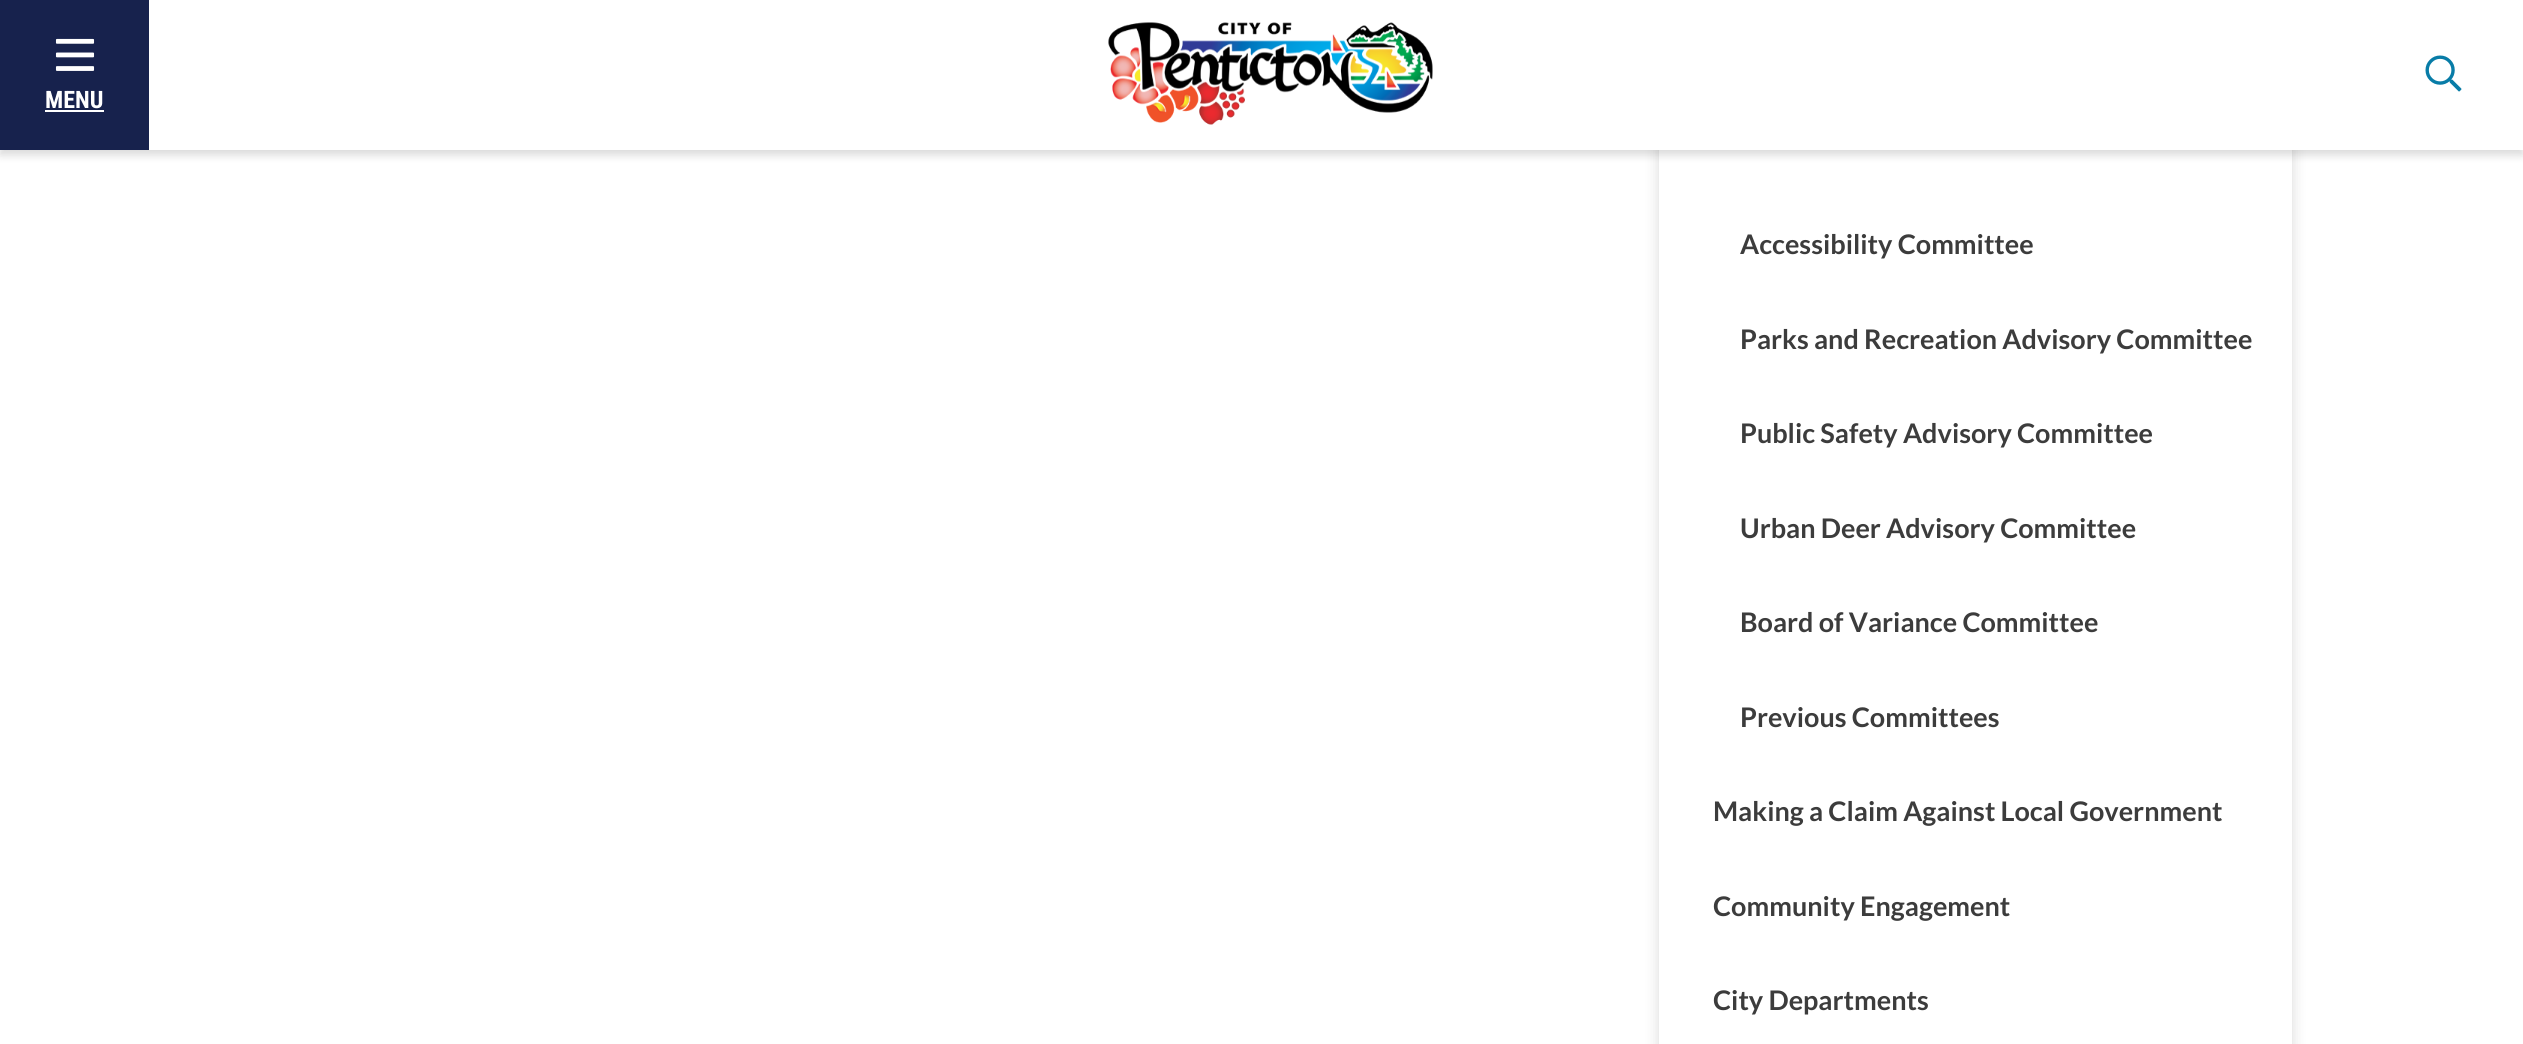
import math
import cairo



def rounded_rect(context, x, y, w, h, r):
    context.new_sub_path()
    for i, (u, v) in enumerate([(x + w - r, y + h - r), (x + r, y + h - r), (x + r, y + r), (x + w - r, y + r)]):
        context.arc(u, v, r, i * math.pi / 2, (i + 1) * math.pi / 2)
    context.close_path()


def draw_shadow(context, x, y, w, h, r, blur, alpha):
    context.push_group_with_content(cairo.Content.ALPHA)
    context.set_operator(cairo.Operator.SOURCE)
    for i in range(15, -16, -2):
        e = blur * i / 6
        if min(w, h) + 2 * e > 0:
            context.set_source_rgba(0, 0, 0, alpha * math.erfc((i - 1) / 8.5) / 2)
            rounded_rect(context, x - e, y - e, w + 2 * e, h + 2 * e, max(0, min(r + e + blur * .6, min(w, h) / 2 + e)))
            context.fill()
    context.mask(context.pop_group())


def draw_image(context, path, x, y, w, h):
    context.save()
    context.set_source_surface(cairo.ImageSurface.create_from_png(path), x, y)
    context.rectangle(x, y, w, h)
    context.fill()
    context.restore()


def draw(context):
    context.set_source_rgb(1, 1, 1)
    context.paint()
    context.set_source_rgb(0, 0, 0)
    draw_shadow(context, 0, 5, 2523, 150, 0, 4.5, 0.15)
    context.save()
    context.set_fill_rule(cairo.FillRule.EVEN_ODD)
    context.new_path()
    context.move_to(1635, 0)
    context.line_to(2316, 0)
    context.line_to(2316, 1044)
    context.line_to(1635, 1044)
    context.close_path()
    context.move_to(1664, -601)
    context.line_to(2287, -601)
    context.curve_to(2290, -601, 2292, -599, 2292, -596)
    context.line_to(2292, 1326)
    context.curve_to(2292, 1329, 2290, 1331, 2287, 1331)
    context.line_to(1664, 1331)
    context.curve_to(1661, 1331, 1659, 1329, 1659, 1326)
    context.line_to(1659, -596)
    context.curve_to(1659, -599, 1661, -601, 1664, -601)
    context.close_path()
    context.clip()
    draw_shadow(context, 1659, -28, 633, 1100, 5, 7.5, 0.15)
    context.restore()
    context.set_source_rgb(1, 1, 1)
    context.rectangle(149, 0, 2374, 150)
    context.fill()
    draw_image(context, "images/1.png", 1108, 22, 325, 103)
    draw_image(context, "images/2.png", 2425, 55, 37, 37)
    context.set_source_rgb(23 / 255, 34 / 255, 77 / 255)
    context.rectangle(0, 0, 149, 150)
    context.fill()
    draw_image(context, "images/3.png", 55, 38, 40, 33)
    context.set_source_rgb(1, 1, 1)
    context.rectangle(45, 110, 59, 2)
    context.fill()
    context.select_font_face("Roboto Condensed", cairo.FontSlant.NORMAL, cairo.FontWeight.BOLD)
    context.set_font_size(24)
    context.move_to(45, 108)
    context.show_text("MENU")
    context.select_font_face("Lato", cairo.FontSlant.NORMAL, cairo.FontWeight.BOLD)
    context.set_font_size(27)
    context.set_source_rgb(60 / 255, 60 / 255, 60 / 255)
    context.move_to(1740, 254)
    context.show_text("Accessibility Committee")
    context.move_to(1740, 349)
    context.show_text("Parks and Recreation Advisory Committee")
    context.move_to(1740, 443)
    context.show_text("Public Safety Advisory Committee")
    context.move_to(1740, 538)
    context.show_text("Urban Deer Advisory Committee")
    context.move_to(1740, 632)
    context.show_text("Board of Variance Committee")
    context.move_to(1740, 727)
    context.show_text("Previous Committees")
    context.move_to(1713, 821)
    context.show_text("Making a Claim Against Local Government")
    context.move_to(1713, 916)
    context.show_text("Community Engagement")
    context.move_to(1713, 1010)
    context.show_text("City Departments")


surface = cairo.ImageSurface(cairo.Format.RGB24, 2523, 1044)
context = cairo.Context(surface)
options = cairo.FontOptions()
options.set_hint_metrics(cairo.HintMetrics.OFF)
options.set_hint_style(cairo.HintStyle.NONE)
context.set_font_options(options)
context.set_miter_limit(4)
draw(context)
surface.write_to_png("out.png")
